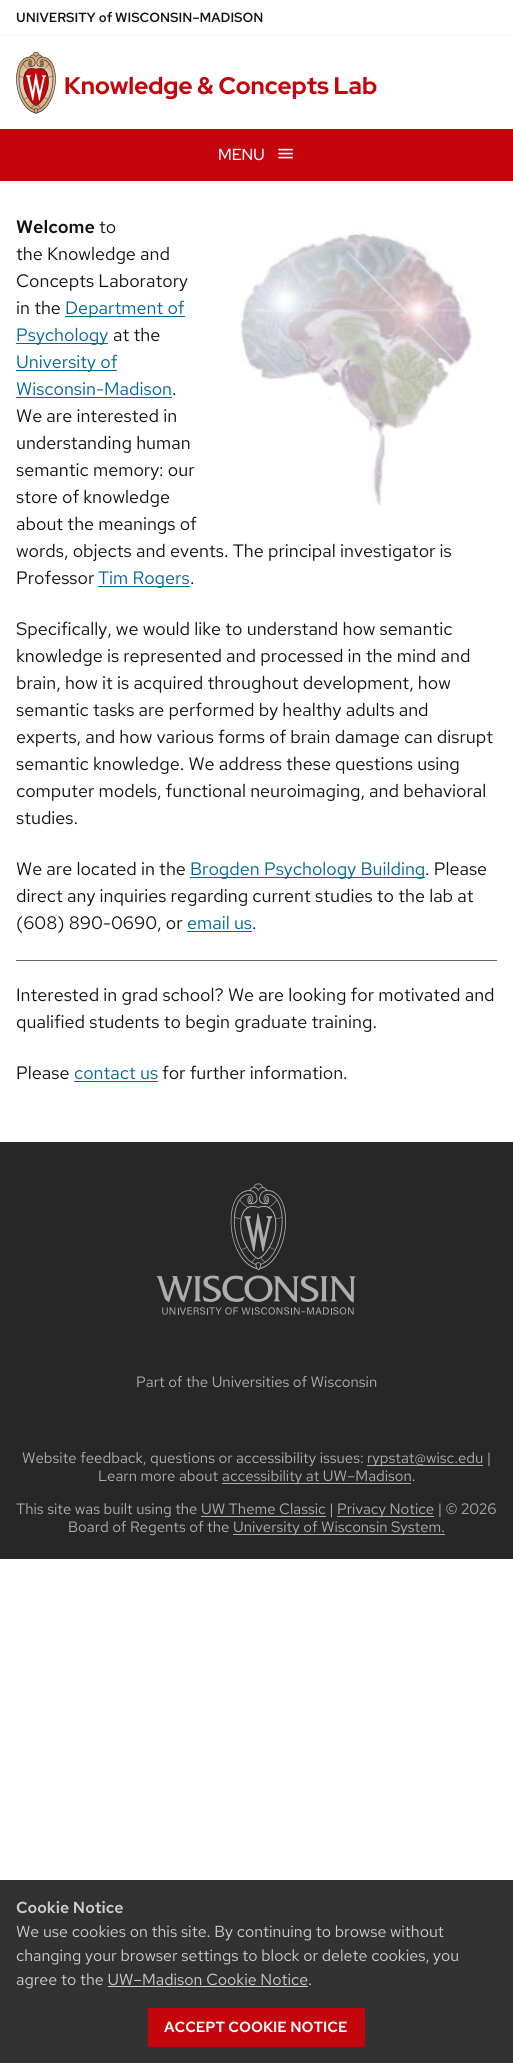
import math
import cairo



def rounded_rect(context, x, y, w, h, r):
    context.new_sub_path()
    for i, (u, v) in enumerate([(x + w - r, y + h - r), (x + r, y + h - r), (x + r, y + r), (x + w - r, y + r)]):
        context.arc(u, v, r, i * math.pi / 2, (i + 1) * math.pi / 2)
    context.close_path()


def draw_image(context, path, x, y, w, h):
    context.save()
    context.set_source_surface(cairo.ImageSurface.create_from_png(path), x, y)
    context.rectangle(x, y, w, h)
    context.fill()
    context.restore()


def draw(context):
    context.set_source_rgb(1, 1, 1)
    context.paint()
    context.set_source_rgb(243 / 255, 243 / 255, 243 / 255)
    context.rectangle(0, 35, 513, 1)
    context.fill()
    draw_image(context, "images/1.png", 16, 52, 40, 62)
    context.set_source_rgb(197 / 255, 5 / 255, 12 / 255)
    context.rectangle(0, 129, 513, 52)
    context.fill()
    draw_image(context, "images/2.png", 278, 148, 15, 11)
    context.set_source_rgb(3 / 255, 103 / 255, 150 / 255)
    context.rectangle(65, 316, 120, 1)
    context.fill()
    context.rectangle(16, 343, 92, 1)
    context.fill()
    context.rectangle(16, 370, 101, 1)
    context.fill()
    context.rectangle(16, 397, 156, 1)
    context.fill()
    context.rectangle(98, 586, 92, 1)
    context.fill()
    context.rectangle(190, 877, 235, 1)
    context.fill()
    context.rectangle(187, 931, 65, 1)
    context.fill()
    context.set_source_rgb(100 / 255, 101 / 255, 105 / 255)
    context.rectangle(16, 960, 481, 1)
    context.fill()
    context.set_source_rgb(3 / 255, 103 / 255, 150 / 255)
    context.rectangle(74, 1081, 84, 1)
    context.fill()
    draw_image(context, "images/3.png", 238, 229, 240, 277)
    context.set_source_rgb(40 / 255, 39 / 255, 40 / 255)
    context.rectangle(0, 1142, 513, 417)
    context.fill()
    draw_image(context, "images/4.png", 156, 1183, 200, 132)
    context.set_source_rgb(173 / 255, 173 / 255, 173 / 255)
    context.rectangle(367, 1465, 116, 1)
    context.fill()
    context.rectangle(222, 1483, 189, 1)
    context.fill()
    context.rectangle(337, 1516, 97, 1)
    context.fill()
    context.rectangle(201, 1516, 125, 1)
    context.fill()
    context.rectangle(233, 1534, 212, 1)
    context.fill()
    context.set_source_rgb(51 / 255, 50 / 255, 51 / 255)
    context.rectangle(0, 1880, 513, 183)
    context.fill()
    context.set_source_rgb(204 / 255, 204 / 255, 204 / 255)
    context.rectangle(108, 1986, 200, 1)
    context.fill()
    context.set_source_rgb(197 / 255, 5 / 255, 12 / 255)
    rounded_rect(context, 148, 2008, 217, 39, 2)
    context.fill()
    context.select_font_face("Red Hat Text Medium")
    context.set_font_size(13.25)
    context.set_source_rgb(18 / 255, 18 / 255, 18 / 255)
    context.move_to(16, 22)
    context.show_text("UNIVERSITY of WISCONSIN–MADISON")
    context.select_font_face("Red Hat Display", cairo.FontSlant.NORMAL, cairo.FontWeight.BOLD)
    context.set_font_size(24)
    context.set_source_rgb(197 / 255, 5 / 255, 12 / 255)
    context.move_to(64, 94)
    context.show_text("Knowledge & Concepts Lab")
    context.select_font_face("Red Hat Display")
    context.set_font_size(16)
    context.set_source_rgb(1, 1, 1)
    context.move_to(218, 160)
    context.show_text("MENU")
    context.select_font_face("Red Hat Text SemiBold")
    context.set_font_size(18)
    context.set_source_rgb(18 / 255, 18 / 255, 18 / 255)
    context.move_to(16, 233)
    context.show_text("Welcome")
    context.select_font_face("Red Hat Text")
    context.move_to(99, 233)
    context.show_text("to")
    context.move_to(16, 260)
    context.show_text("the Knowledge and")
    context.move_to(16, 287)
    context.show_text("Concepts Laboratory")
    context.move_to(16, 314)
    context.show_text("in the")
    context.set_source_rgb(3 / 255, 103 / 255, 150 / 255)
    context.move_to(65, 314)
    context.show_text("Department of")
    context.move_to(16, 341)
    context.show_text("Psychology")
    context.set_source_rgb(18 / 255, 18 / 255, 18 / 255)
    context.move_to(113, 341)
    context.show_text("at the")
    context.set_source_rgb(3 / 255, 103 / 255, 150 / 255)
    context.move_to(16, 368)
    context.show_text("University of")
    context.move_to(16, 395)
    context.show_text("Wisconsin-Madison")
    context.set_source_rgb(18 / 255, 18 / 255, 18 / 255)
    context.move_to(172, 395)
    context.show_text(".")
    context.move_to(16, 422)
    context.show_text("We are interested in")
    context.move_to(16, 449)
    context.show_text("understanding human")
    context.move_to(16, 476)
    context.show_text("semantic memory: our")
    context.move_to(16, 503)
    context.show_text("store of knowledge")
    context.move_to(16, 530)
    context.show_text("about the meanings of")
    context.move_to(16, 557)
    context.show_text("words, objects and events. The principal investigator is")
    context.move_to(16, 584)
    context.show_text("Professor")
    context.set_source_rgb(3 / 255, 103 / 255, 150 / 255)
    context.move_to(98, 584)
    context.show_text("Tim Rogers")
    context.set_source_rgb(18 / 255, 18 / 255, 18 / 255)
    context.move_to(190, 584)
    context.show_text(".")
    context.move_to(16, 635)
    context.show_text("Specifically, we would like to understand how semantic")
    context.move_to(16, 662)
    context.show_text("knowledge is represented and processed in the mind and")
    context.move_to(16, 689)
    context.show_text("brain, how it is acquired throughout development, how")
    context.move_to(16, 716)
    context.show_text("semantic tasks are performed by healthy adults and")
    context.move_to(16, 743)
    context.show_text("experts, and how various forms of brain damage can disrupt")
    context.move_to(16, 770)
    context.show_text("semantic knowledge. We address these questions using")
    context.move_to(16, 797)
    context.show_text("computer models, functional neuroimaging, and behavioral")
    context.move_to(16, 824)
    context.show_text("studies.")
    context.move_to(16, 875)
    context.show_text("We are located in the")
    context.set_source_rgb(3 / 255, 103 / 255, 150 / 255)
    context.move_to(190, 875)
    context.show_text("Brogden Psychology Building")
    context.set_source_rgb(18 / 255, 18 / 255, 18 / 255)
    context.move_to(425, 875)
    context.show_text(". Please")
    context.move_to(16, 902)
    context.show_text("direct any inquiries regarding current studies to the lab at")
    context.move_to(16, 929)
    context.show_text("(608) 890-0690, or")
    context.set_source_rgb(3 / 255, 103 / 255, 150 / 255)
    context.move_to(187, 929)
    context.show_text("email us")
    context.set_source_rgb(18 / 255, 18 / 255, 18 / 255)
    context.move_to(252, 929)
    context.show_text(".")
    context.move_to(16, 1001)
    context.show_text("Interested in grad school? We are looking for motivated and")
    context.move_to(16, 1028)
    context.show_text("qualified students to begin graduate training.")
    context.move_to(16, 1079)
    context.show_text("Please")
    context.set_source_rgb(3 / 255, 103 / 255, 150 / 255)
    context.move_to(74, 1079)
    context.show_text("contact us")
    context.set_source_rgb(18 / 255, 18 / 255, 18 / 255)
    context.move_to(162, 1079)
    context.show_text("for further information.")
    context.set_font_size(15)
    context.set_source_rgb(173 / 255, 173 / 255, 173 / 255)
    context.move_to(136, 1387)
    context.show_text("Part of the Universities of Wisconsin")
    context.move_to(22, 1463)
    context.show_text("Website feedback, questions or accessibility issues:")
    context.move_to(367, 1463)
    context.show_text("rypstat@wisc.edu |")
    context.move_to(98, 1481)
    context.show_text("Learn more about")
    context.move_to(222, 1481)
    context.show_text("accessibility at UW–Madison.")
    context.move_to(16, 1514)
    context.show_text("This site was built using the UW Theme Classic |")
    context.move_to(337, 1514)
    context.show_text("Privacy Notice | © 2026")
    context.move_to(68, 1532)
    context.show_text("Board of Regents of the")
    context.move_to(233, 1532)
    context.show_text("University of Wisconsin System.")
    context.select_font_face("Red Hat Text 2 SemiBold")
    context.set_font_size(16)
    context.set_source_rgb(204 / 255, 204 / 255, 204 / 255)
    context.move_to(16, 1913)
    context.show_text("Cookie Notice")
    context.select_font_face("Red Hat Text")
    context.move_to(16, 1937)
    context.show_text("We use cookies on this site. By continuing to browse without")
    context.move_to(16, 1961)
    context.show_text("changing your browser settings to block or delete cookies, you")
    context.move_to(16, 1985)
    context.show_text("agree to the UW–Madison Cookie Notice.")
    context.select_font_face("Red Hat Text 2 SemiBold")
    context.set_font_size(14.75)
    context.set_source_rgb(1, 1, 1)
    context.move_to(164, 2032)
    context.show_text("ACCEPT COOKIE NOTICE")


surface = cairo.ImageSurface(cairo.Format.RGB24, 513, 2063)
context = cairo.Context(surface)
options = cairo.FontOptions()
options.set_hint_metrics(cairo.HintMetrics.OFF)
options.set_hint_style(cairo.HintStyle.NONE)
context.set_font_options(options)
context.set_miter_limit(4)
draw(context)
surface.write_to_png("out.png")
